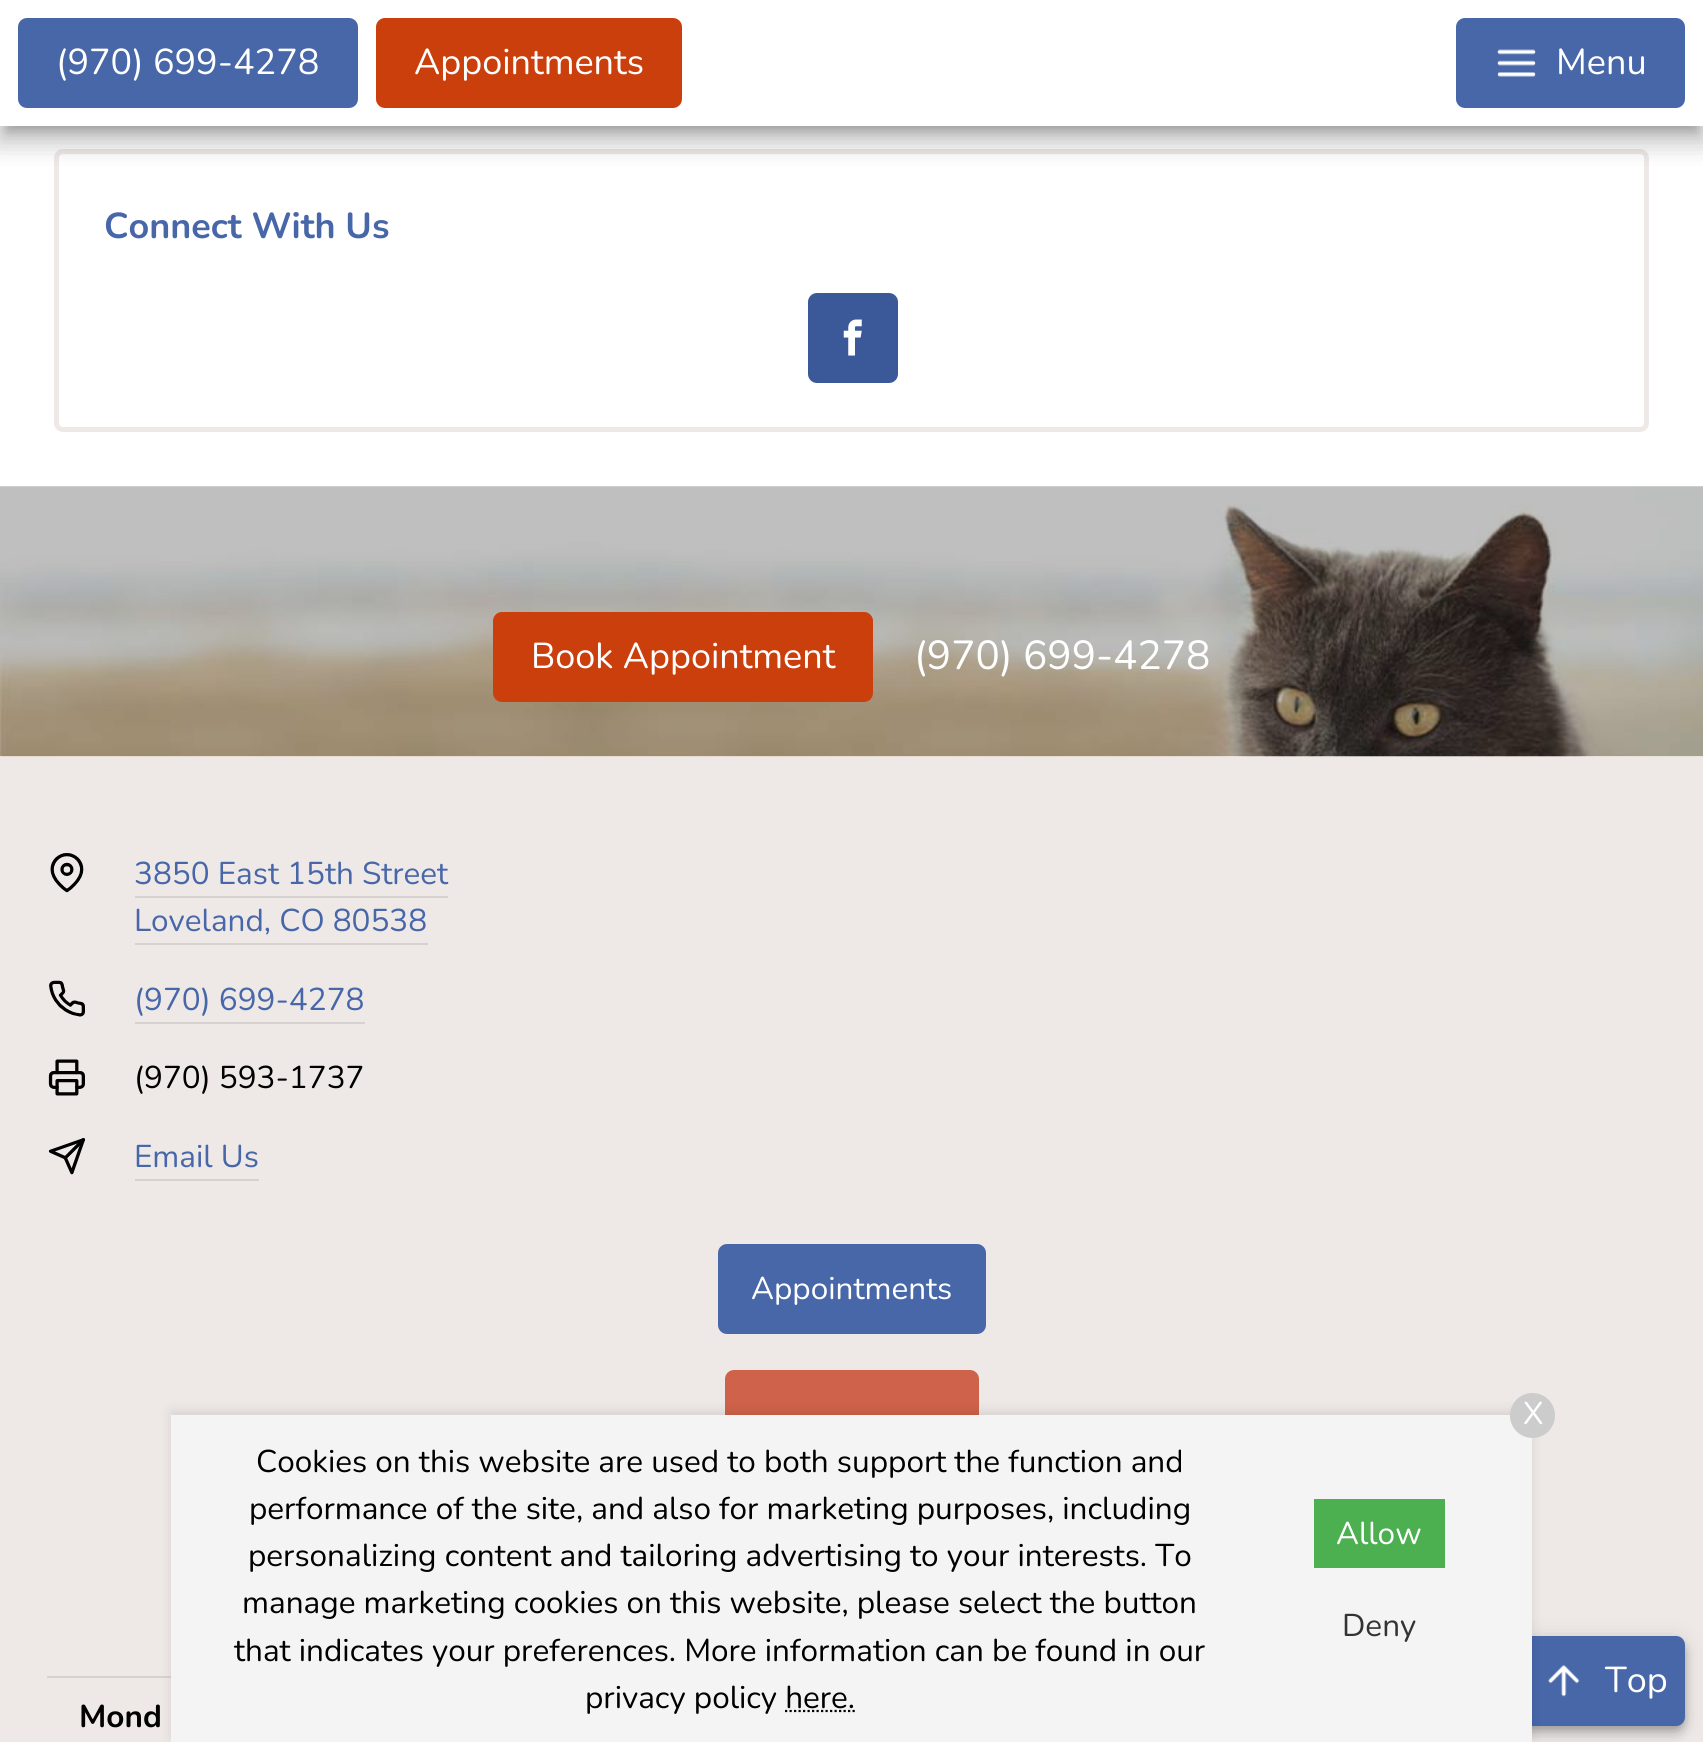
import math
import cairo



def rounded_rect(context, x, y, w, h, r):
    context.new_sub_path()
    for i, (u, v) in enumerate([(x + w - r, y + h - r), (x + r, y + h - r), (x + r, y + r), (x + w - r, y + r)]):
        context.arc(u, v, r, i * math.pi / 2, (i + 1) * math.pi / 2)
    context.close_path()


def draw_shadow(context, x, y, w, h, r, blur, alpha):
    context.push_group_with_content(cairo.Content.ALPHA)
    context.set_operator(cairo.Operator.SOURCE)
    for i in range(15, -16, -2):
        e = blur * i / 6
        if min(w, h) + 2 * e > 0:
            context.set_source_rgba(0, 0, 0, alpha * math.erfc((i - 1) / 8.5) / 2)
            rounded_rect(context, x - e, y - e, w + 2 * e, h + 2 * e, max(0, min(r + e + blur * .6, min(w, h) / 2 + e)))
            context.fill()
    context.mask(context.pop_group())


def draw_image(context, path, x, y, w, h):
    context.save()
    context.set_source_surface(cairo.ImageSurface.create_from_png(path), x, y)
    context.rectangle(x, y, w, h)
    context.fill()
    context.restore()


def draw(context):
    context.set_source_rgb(1, 1, 1)
    context.paint()
    rounded_rect(context, 56.5, 151.5, 1590, 278, 6.5)
    context.set_source_rgb(238 / 255, 233 / 255, 231 / 255)
    context.set_line_width(5)
    context.stroke()
    context.set_source_rgb(0, 0, 0)
    draw_shadow(context, -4, 2, 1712, 135, 0, 16, 0.12)
    draw_shadow(context, -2, 16, 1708, 130, 0, 11, 0.14)
    draw_shadow(context, 7, 18, 1690, 113, 0, 5.5, 0.2)
    context.set_source_rgb(1, 1, 1)
    context.rectangle(0, 0, 1703, 126)
    context.fill()
    context.set_source_rgb(71 / 255, 103 / 255, 169 / 255)
    rounded_rect(context, 18, 18, 340, 90, 9)
    context.fill()
    context.set_source_rgb(202 / 255, 63 / 255, 12 / 255)
    rounded_rect(context, 376, 18, 306, 90, 9)
    context.fill()
    context.set_source_rgb(71 / 255, 103 / 255, 169 / 255)
    rounded_rect(context, 1456, 18, 229, 90, 9)
    context.fill()
    draw_image(context, "images/1.png", 1497, 49, 39, 28)
    context.set_source_rgb(59 / 255, 89 / 255, 152 / 255)
    rounded_rect(context, 808, 293, 90, 90, 9)
    context.fill()
    draw_image(context, "images/2.png", 843, 319, 19, 37)
    context.set_source_rgb(238 / 255, 233 / 255, 231 / 255)
    context.rectangle(0, 756, 1703, 986)
    context.fill()
    draw_image(context, "images/3.png", 0, 486, 1703, 271)
    context.set_source_rgb(202 / 255, 63 / 255, 12 / 255)
    rounded_rect(context, 493, 612, 380, 90, 9)
    context.fill()
    draw_image(context, "images/4.png", 50, 853, 34, 40)
    context.set_source_rgb(214 / 255, 210 / 255, 208 / 255)
    context.rectangle(135, 896, 313, 2)
    context.fill()
    context.rectangle(135, 943, 293, 2)
    context.fill()
    draw_image(context, "images/5.png", 49, 980, 36, 37)
    context.rectangle(135, 1022, 230, 2)
    context.fill()
    draw_image(context, "images/6.png", 48, 1059, 37, 37)
    draw_image(context, "images/7.png", 48, 1138, 37, 37)
    context.rectangle(135, 1179, 124, 2)
    context.fill()
    context.set_source_rgb(71 / 255, 103 / 255, 169 / 255)
    rounded_rect(context, 718, 1244, 268, 90, 9)
    context.fill()
    context.set_source_rgb(207 / 255, 98 / 255, 74 / 255)
    rounded_rect(context, 725, 1370, 254, 90, 9)
    context.fill()
    context.set_source_rgb(214 / 255, 210 / 255, 208 / 255)
    context.rectangle(47, 1676, 124, 2)
    context.fill()
    context.set_source_rgb(0, 0, 0)
    draw_shadow(context, 1523, 1638, 162, 90, 9, 11, 0.12)
    draw_shadow(context, 1523, 1645, 162, 90, 9, 5.5, 0.14)
    draw_shadow(context, 1526, 1643, 157, 85, 7, 4.5, 0.2)
    context.set_source_rgb(71 / 255, 103 / 255, 169 / 255)
    rounded_rect(context, 1523, 1636, 162, 90, 9)
    context.fill()
    draw_image(context, "images/8.png", 1548, 1665, 32, 32)
    context.set_source_rgb(0, 0, 0)
    draw_shadow(context, 171, 1411, 1361, 328, 0, 5.5, 0.1)
    context.set_source_rgb(244 / 255, 244 / 255, 244 / 255)
    context.rectangle(171, 1415, 1361, 327)
    context.fill()
    context.set_source_rgb(204 / 255, 204 / 255, 204 / 255)
    context.arc(1532.5, 1415.5, 22.5, 0, 2 * math.pi)
    context.fill()
    context.new_path()
    context.move_to(785, 1711)
    context.line_to(855, 1711)
    context.set_source_rgb(0, 0, 0)
    context.set_line_width(2.2)
    context.set_dash([2.25, 2.25])
    context.stroke()
    context.set_source_rgb(76 / 255, 175 / 255, 80 / 255)
    context.rectangle(1314, 1499, 131, 69)
    context.fill()
    context.select_font_face("Nunito")
    context.set_font_size(36)
    context.set_source_rgb(1, 1, 1)
    context.move_to(56, 74)
    context.show_text("(970) 699-4278")
    context.move_to(414, 74)
    context.show_text("Appointments")
    context.move_to(1556, 74)
    context.show_text("Menu")
    context.select_font_face("Nunito", cairo.FontSlant.NORMAL, cairo.FontWeight.BOLD)
    context.set_source_rgb(71 / 255, 103 / 255, 169 / 255)
    context.move_to(104, 238)
    context.show_text("Connect With Us")
    context.select_font_face("Nunito")
    context.set_source_rgb(1, 1, 1)
    context.move_to(531, 668)
    context.show_text("Book Appointment")
    context.set_font_size(40.5)
    context.move_to(914, 669)
    context.show_text("(970) 699-4278")
    context.set_font_size(31.5)
    context.set_source_rgb(71 / 255, 103 / 255, 169 / 255)
    context.move_to(134, 884)
    context.show_text("3850 East 15th Street")
    context.move_to(134, 931)
    context.show_text("Loveland, CO 80538")
    context.move_to(134, 1010)
    context.show_text("(970) 699-4278")
    context.set_source_rgb(0, 0, 0)
    context.move_to(134, 1088)
    context.show_text("(970) 593-1737")
    context.set_source_rgb(71 / 255, 103 / 255, 169 / 255)
    context.move_to(134, 1167)
    context.show_text("Email Us")
    context.set_source_rgb(1, 1, 1)
    context.move_to(751, 1299)
    context.show_text("Appointments")
    context.select_font_face("Nunito", cairo.FontSlant.NORMAL, cairo.FontWeight.BOLD)
    context.set_source_rgb(0, 0, 0)
    context.move_to(79, 1727)
    context.show_text("Mond")
    context.select_font_face("Nunito")
    context.set_source_rgb(1, 1, 1)
    context.move_to(1523, 1424)
    context.show_text("X")
    context.set_source_rgb(0, 0, 0)
    context.move_to(256, 1472)
    context.show_text("Cookies on this website are used to both support the function and")
    context.move_to(249, 1519)
    context.show_text("performance of the site, and also for marketing purposes, including")
    context.move_to(248, 1566)
    context.show_text("personalizing content and tailoring advertising to your interests. To")
    context.move_to(242, 1613)
    context.show_text("manage marketing cookies on this website, please select the button")
    context.move_to(234, 1661)
    context.show_text("that indicates your preferences. More information can be found in our")
    context.move_to(585, 1708)
    context.show_text("privacy policy here.")
    context.set_source_rgb(1, 1, 1)
    context.move_to(1336, 1544)
    context.show_text("Allow")
    context.set_source_rgb(51 / 255, 51 / 255, 51 / 255)
    context.move_to(1342, 1636)
    context.show_text("Deny")
    context.set_font_size(36)
    context.set_source_rgb(1, 1, 1)
    context.move_to(1605, 1692)
    context.show_text("Top")


surface = cairo.ImageSurface(cairo.Format.RGB24, 1703, 1742)
context = cairo.Context(surface)
options = cairo.FontOptions()
options.set_hint_metrics(cairo.HintMetrics.OFF)
options.set_hint_style(cairo.HintStyle.NONE)
context.set_font_options(options)
context.set_miter_limit(4)
draw(context)
surface.write_to_png("out.png")
